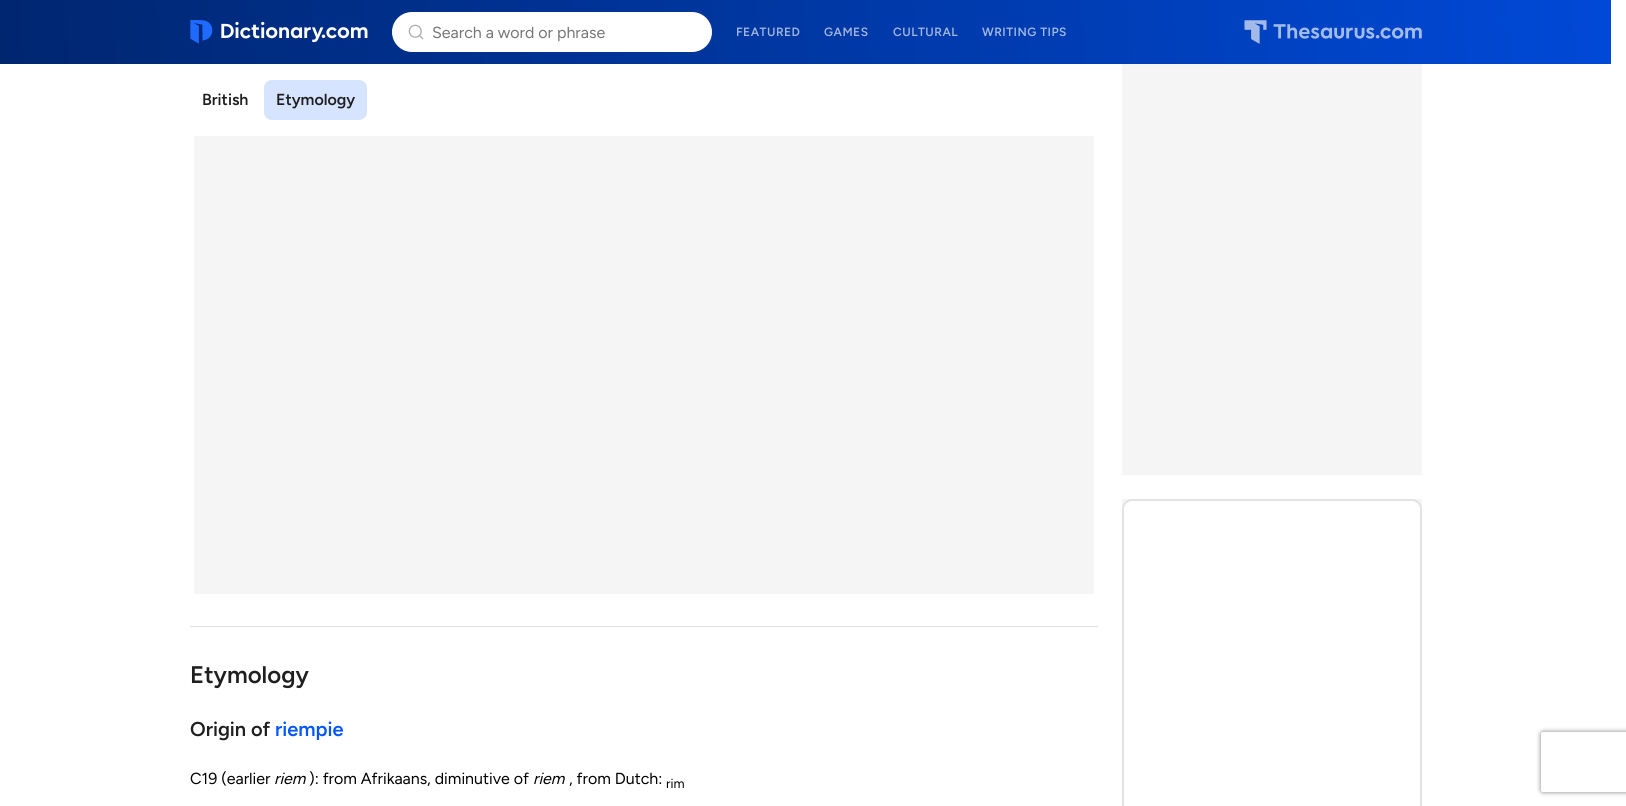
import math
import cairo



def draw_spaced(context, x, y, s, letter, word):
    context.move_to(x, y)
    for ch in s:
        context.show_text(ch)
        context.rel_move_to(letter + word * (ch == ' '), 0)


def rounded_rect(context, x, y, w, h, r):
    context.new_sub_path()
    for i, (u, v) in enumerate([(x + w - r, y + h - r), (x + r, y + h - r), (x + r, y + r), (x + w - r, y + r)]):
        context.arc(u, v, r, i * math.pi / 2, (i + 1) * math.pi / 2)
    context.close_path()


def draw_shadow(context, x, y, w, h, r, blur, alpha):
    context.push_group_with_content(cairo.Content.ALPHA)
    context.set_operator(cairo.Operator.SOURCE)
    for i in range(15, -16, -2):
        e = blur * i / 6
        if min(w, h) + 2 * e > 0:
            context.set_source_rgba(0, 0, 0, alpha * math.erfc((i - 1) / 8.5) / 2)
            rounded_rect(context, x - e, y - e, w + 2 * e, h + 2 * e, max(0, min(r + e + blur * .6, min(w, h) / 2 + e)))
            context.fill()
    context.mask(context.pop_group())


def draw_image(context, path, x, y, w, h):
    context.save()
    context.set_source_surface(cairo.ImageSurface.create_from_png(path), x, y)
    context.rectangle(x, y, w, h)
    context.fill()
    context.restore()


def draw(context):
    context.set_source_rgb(1, 1, 1)
    context.paint()
    gradient = cairo.LinearGradient(2, 91, 1609, -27)
    gradient.add_color_stop_rgba(0, 0, 38 / 255, 112 / 255, 1)
    gradient.add_color_stop_rgba(1, 0, 73 / 255, 215 / 255, 1)
    context.set_source(gradient)
    context.rectangle(0, 0, 1611, 64)
    context.fill()
    draw_image(context, "images/1.png", 190, 20, 178, 24)
    context.set_source_rgb(1, 1, 1)
    rounded_rect(context, 392, 12, 320, 40, 20)
    context.fill()
    draw_image(context, "images/2.png", 408, 24, 16, 16)
    draw_image(context, "images/3.png", 1244, 20, 178, 24)
    context.set_source_rgb(214 / 255, 228 / 255, 1)
    rounded_rect(context, 264, 80, 103, 40, 8)
    context.fill()
    context.set_source_rgb(245 / 255, 245 / 255, 245 / 255)
    context.rectangle(194, 136, 900, 458)
    context.fill()
    context.set_source_rgb(224 / 255, 224 / 255, 224 / 255)
    context.rectangle(190, 626, 908, 1)
    context.fill()
    context.set_source_rgb(245 / 255, 245 / 255, 245 / 255)
    context.rectangle(1122, 64, 300, 411)
    context.fill()
    context.rectangle(1122, 499, 300, 10)
    context.fill()
    context.set_source_rgb(1, 1, 1)
    rounded_rect(context, 1123, 500, 298, 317, 9)
    context.fill_preserve()
    context.set_source_rgb(227 / 255, 227 / 255, 227 / 255)
    context.stroke()
    context.save()
    context.set_fill_rule(cairo.FillRule.EVEN_ODD)
    context.new_path()
    context.move_to(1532, 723)
    context.line_to(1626, 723)
    context.line_to(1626, 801)
    context.line_to(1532, 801)
    context.close_path()
    context.move_to(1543, 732)
    context.line_to(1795, 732)
    context.curve_to(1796, 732, 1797, 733, 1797, 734)
    context.line_to(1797, 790)
    context.curve_to(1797, 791, 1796, 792, 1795, 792)
    context.line_to(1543, 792)
    context.curve_to(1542, 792, 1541, 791, 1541, 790)
    context.line_to(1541, 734)
    context.curve_to(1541, 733, 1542, 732, 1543, 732)
    context.close_path()
    context.clip()
    context.set_source_rgb(128 / 255, 128 / 255, 128 / 255)
    draw_shadow(context, 1541, 732, 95, 60, 2, 2.5, 1)
    context.restore()
    context.select_font_face("Figtree")
    context.set_font_size(16)
    context.set_source_rgb(117 / 255, 117 / 255, 117 / 255)
    context.move_to(432, 38)
    context.show_text("Search a word or phrase")
    context.select_font_face("Figtree SemiBold")
    context.set_font_size(12)
    context.set_source_rgb(163 / 255, 183 / 255, 221 / 255)
    draw_spaced(context, 736, 36, "FEATURED", 0.5, 0)
    draw_spaced(context, 824, 36, "GAMES", 0.5, 0)
    draw_spaced(context, 893, 36, "CULTURAL", 0.5, 0)
    context.set_source_rgb(163 / 255, 185 / 255, 227 / 255)
    draw_spaced(context, 982, 36, "WRITING TIPS", 0.5, 0)
    context.set_font_size(16)
    context.set_source_rgb(31 / 255, 31 / 255, 31 / 255)
    context.move_to(202, 105)
    context.show_text("British")
    context.move_to(276, 105)
    context.show_text("Etymology")
    context.set_font_size(24)
    context.move_to(190, 683)
    context.show_text("Etymology")
    context.set_font_size(20)
    context.move_to(190, 736)
    context.show_text("Origin of")
    context.set_source_rgb(0, 87 / 255, 1)
    context.move_to(275, 736)
    context.show_text("riempie")
    context.select_font_face("Figtree")
    context.set_font_size(16)
    context.set_source_rgb(0, 0, 0)
    context.move_to(190, 784)
    context.show_text("C19 (earlier")
    context.select_font_face("Figtree", cairo.FontSlant.ITALIC)
    context.move_to(274, 784)
    context.show_text("riem")
    context.select_font_face("Figtree")
    context.move_to(309, 784)
    context.show_text("): from Afrikaans, diminutive of")
    context.select_font_face("Figtree", cairo.FontSlant.ITALIC)
    context.move_to(533, 784)
    context.show_text("riem")
    context.select_font_face("Figtree")
    context.move_to(569, 784)
    context.show_text(", from Dutch:")
    context.set_font_size(13)
    context.move_to(666, 788)
    context.show_text("rim")


surface = cairo.ImageSurface(cairo.Format.RGB24, 1626, 806)
context = cairo.Context(surface)
options = cairo.FontOptions()
options.set_hint_metrics(cairo.HintMetrics.OFF)
options.set_hint_style(cairo.HintStyle.NONE)
context.set_font_options(options)
context.set_miter_limit(4)
draw(context)
surface.write_to_png("out.png")
